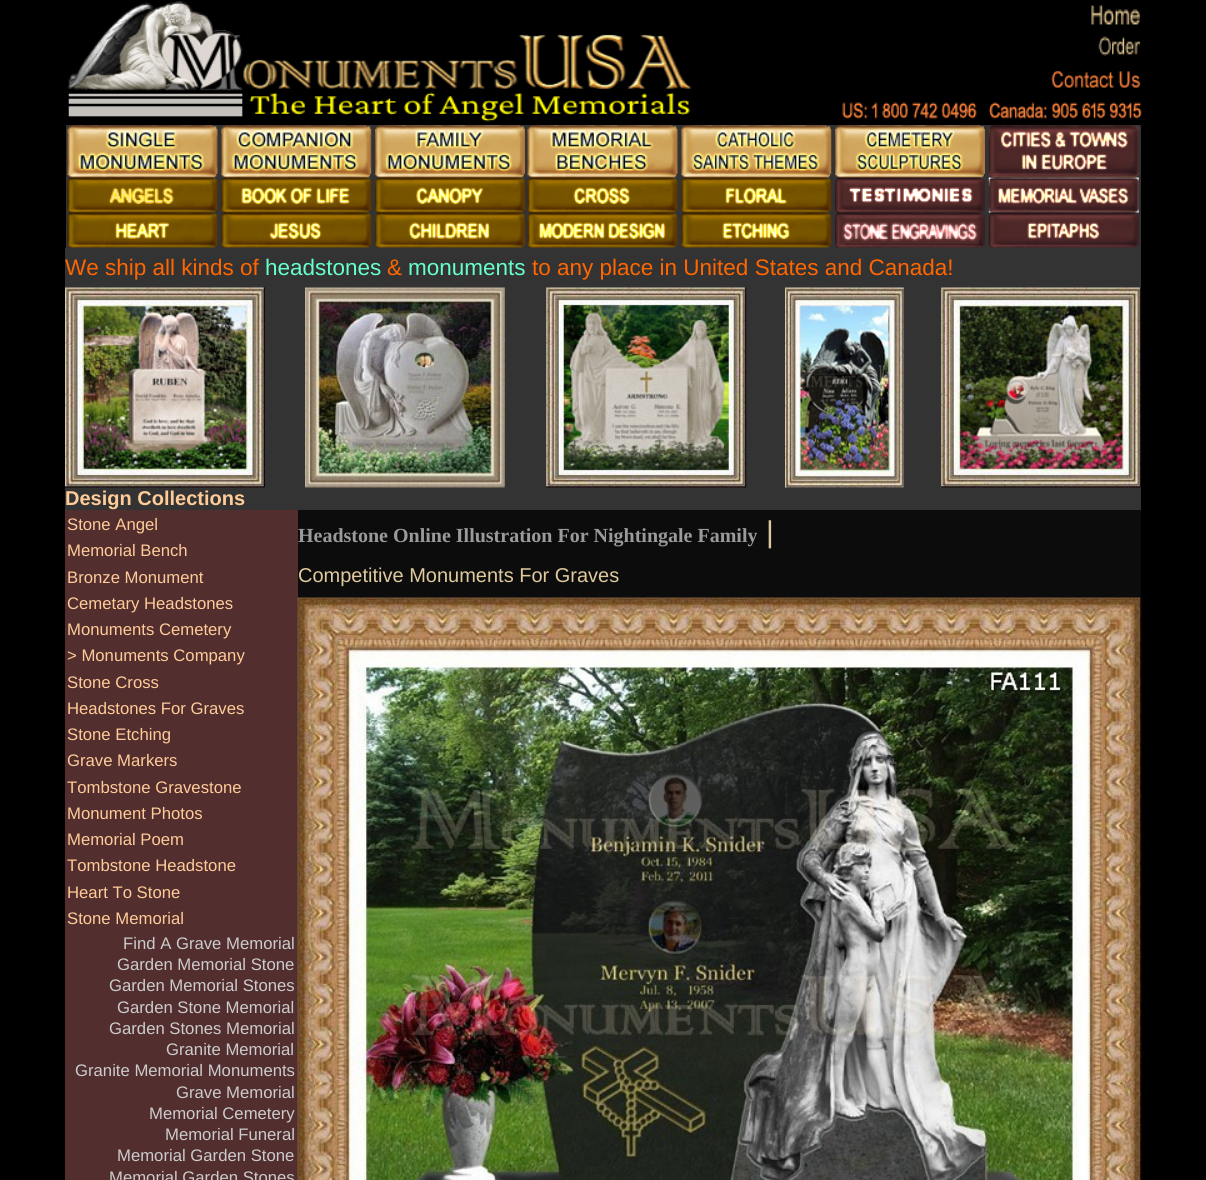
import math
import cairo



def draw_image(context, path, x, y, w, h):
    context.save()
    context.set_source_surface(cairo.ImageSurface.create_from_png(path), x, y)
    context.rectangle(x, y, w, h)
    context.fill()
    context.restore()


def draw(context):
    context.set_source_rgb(0, 0, 0)
    context.paint()
    draw_image(context, "images/1.png", 67, 1, 625, 121)
    draw_image(context, "images/2.png", 1091, 5, 50, 20)
    draw_image(context, "images/3.png", 1098, 36, 43, 21)
    draw_image(context, "images/4.png", 1051, 71, 90, 17)
    draw_image(context, "images/5.png", 842, 102, 300, 17)
    context.set_source_rgb(51 / 255, 51 / 255, 51 / 255)
    context.rectangle(66, 125, 1075, 53)
    context.fill()
    draw_image(context, "images/6.png", 67, 125, 151, 53)
    draw_image(context, "images/7.png", 221, 125, 151, 53)
    draw_image(context, "images/8.png", 375, 125, 150, 53)
    draw_image(context, "images/9.png", 527, 125, 151, 53)
    draw_image(context, "images/10.png", 681, 125, 151, 53)
    draw_image(context, "images/11.png", 835, 125, 150, 53)
    draw_image(context, "images/12.png", 988, 125, 151, 53)
    context.rectangle(66, 178, 1075, 35)
    context.fill()
    draw_image(context, "images/13.png", 67, 177, 151, 36)
    draw_image(context, "images/14.png", 221, 177, 151, 36)
    draw_image(context, "images/15.png", 375, 177, 150, 36)
    draw_image(context, "images/16.png", 527, 177, 151, 36)
    draw_image(context, "images/17.png", 681, 177, 151, 36)
    draw_image(context, "images/18.png", 835, 177, 150, 36)
    draw_image(context, "images/19.png", 988, 177, 151, 36)
    context.rectangle(66, 213, 1075, 35)
    context.fill()
    draw_image(context, "images/20.png", 67, 212, 151, 36)
    draw_image(context, "images/21.png", 221, 212, 151, 36)
    draw_image(context, "images/22.png", 375, 212, 150, 36)
    draw_image(context, "images/23.png", 527, 212, 151, 36)
    draw_image(context, "images/24.png", 681, 212, 151, 36)
    draw_image(context, "images/25.png", 835, 212, 150, 36)
    draw_image(context, "images/26.png", 988, 212, 151, 36)
    context.rectangle(65, 248, 1076, 40)
    context.fill()
    context.rectangle(65, 487, 200, 1)
    context.fill()
    draw_image(context, "images/27.png", 65, 287, 200, 201)
    context.rectangle(265, 288, 876, 200)
    context.fill()
    draw_image(context, "images/28.png", 305, 287, 200, 201)
    draw_image(context, "images/29.png", 546, 287, 201, 201)
    draw_image(context, "images/30.png", 785, 287, 119, 201)
    draw_image(context, "images/31.png", 941, 287, 201, 201)
    context.rectangle(65, 488, 1076, 22)
    context.fill()
    context.set_source_rgb(82 / 255, 46 / 255, 46 / 255)
    context.rectangle(65, 510, 233, 670)
    context.fill()
    context.set_source_rgb(13 / 255, 12 / 255, 13 / 255)
    context.rectangle(298, 510, 843, 88)
    context.fill()
    draw_image(context, "images/32.png", 297, 597, 845, 583)
    context.select_font_face("Liberation Sans")
    context.set_font_size(22.5)
    context.set_source_rgb(1, 102 / 255, 0)
    context.move_to(65, 275)
    context.show_text("We ship all kinds of")
    context.set_source_rgb(102 / 255, 1, 204 / 255)
    context.move_to(265, 275)
    context.show_text("headstones")
    context.set_source_rgb(1, 102 / 255, 0)
    context.move_to(387, 275)
    context.show_text("&")
    context.set_source_rgb(102 / 255, 1, 204 / 255)
    context.move_to(408, 275)
    context.show_text("monuments")
    context.set_source_rgb(1, 102 / 255, 0)
    context.move_to(532, 275)
    context.show_text("to any place in United States and Canada!")
    context.select_font_face("Liberation Sans", cairo.FontSlant.NORMAL, cairo.FontWeight.BOLD)
    context.set_font_size(20)
    context.set_source_rgb(1, 204 / 255, 153 / 255)
    context.move_to(65, 505)
    context.show_text("Design Collections")
    context.select_font_face("Liberation Sans")
    context.set_font_size(16.7)
    context.move_to(67, 530)
    context.show_text("Stone Angel")
    context.move_to(67, 556)
    context.show_text("Memorial Bench")
    context.move_to(67, 583)
    context.show_text("Bronze Monument")
    context.move_to(67, 609)
    context.show_text("Cemetary Headstones")
    context.move_to(67, 635)
    context.show_text("Monuments Cemetery")
    context.move_to(67, 661)
    context.show_text("> Monuments Company")
    context.move_to(67, 688)
    context.show_text("Stone Cross")
    context.move_to(67, 714)
    context.show_text("Headstones For Graves")
    context.move_to(67, 740)
    context.show_text("Stone Etching")
    context.move_to(67, 766)
    context.show_text("Grave Markers")
    context.move_to(67, 793)
    context.show_text("Tombstone Gravestone")
    context.move_to(67, 819)
    context.show_text("Monument Photos")
    context.move_to(67, 845)
    context.show_text("Memorial Poem")
    context.move_to(67, 871)
    context.show_text("Tombstone Headstone")
    context.move_to(67, 898)
    context.show_text("Heart To Stone")
    context.move_to(67, 924)
    context.show_text("Stone Memorial")
    context.set_source_rgb(204 / 255, 204 / 255, 204 / 255)
    context.move_to(123, 949)
    context.show_text("Find A Grave Memorial")
    context.move_to(117, 970)
    context.show_text("Garden Memorial Stone")
    context.move_to(109, 991)
    context.show_text("Garden Memorial Stones")
    context.move_to(117, 1013)
    context.show_text("Garden Stone Memorial")
    context.move_to(109, 1034)
    context.show_text("Garden Stones Memorial")
    context.move_to(166, 1055)
    context.show_text("Granite Memorial")
    context.move_to(75, 1076)
    context.show_text("Granite Memorial Monuments")
    context.move_to(176, 1098)
    context.show_text("Grave Memorial")
    context.move_to(149, 1119)
    context.show_text("Memorial Cemetery")
    context.move_to(165, 1140)
    context.show_text("Memorial Funeral")
    context.move_to(117, 1161)
    context.show_text("Memorial Garden Stone")
    context.move_to(109, 1183)
    context.show_text("Memorial Garden Stones")
    context.select_font_face("Liberation Serif", cairo.FontSlant.NORMAL, cairo.FontWeight.BOLD)
    context.set_font_size(20)
    context.set_source_rgb(154 / 255, 154 / 255, 154 / 255)
    context.move_to(298, 542)
    context.show_text("Headstone Online Illustration For Nightingale Family")
    context.select_font_face("Liberation Sans")
    context.set_font_size(30)
    context.set_source_rgb(223 / 255, 202 / 255, 157 / 255)
    context.move_to(766, 542)
    context.show_text("|")
    context.set_font_size(20)
    context.move_to(298, 582)
    context.show_text("Competitive Monuments For Graves")


surface = cairo.ImageSurface(cairo.Format.RGB24, 1206, 1180)
context = cairo.Context(surface)
options = cairo.FontOptions()
options.set_hint_metrics(cairo.HintMetrics.OFF)
options.set_hint_style(cairo.HintStyle.NONE)
context.set_font_options(options)
context.set_miter_limit(4)
draw(context)
surface.write_to_png("out.png")
